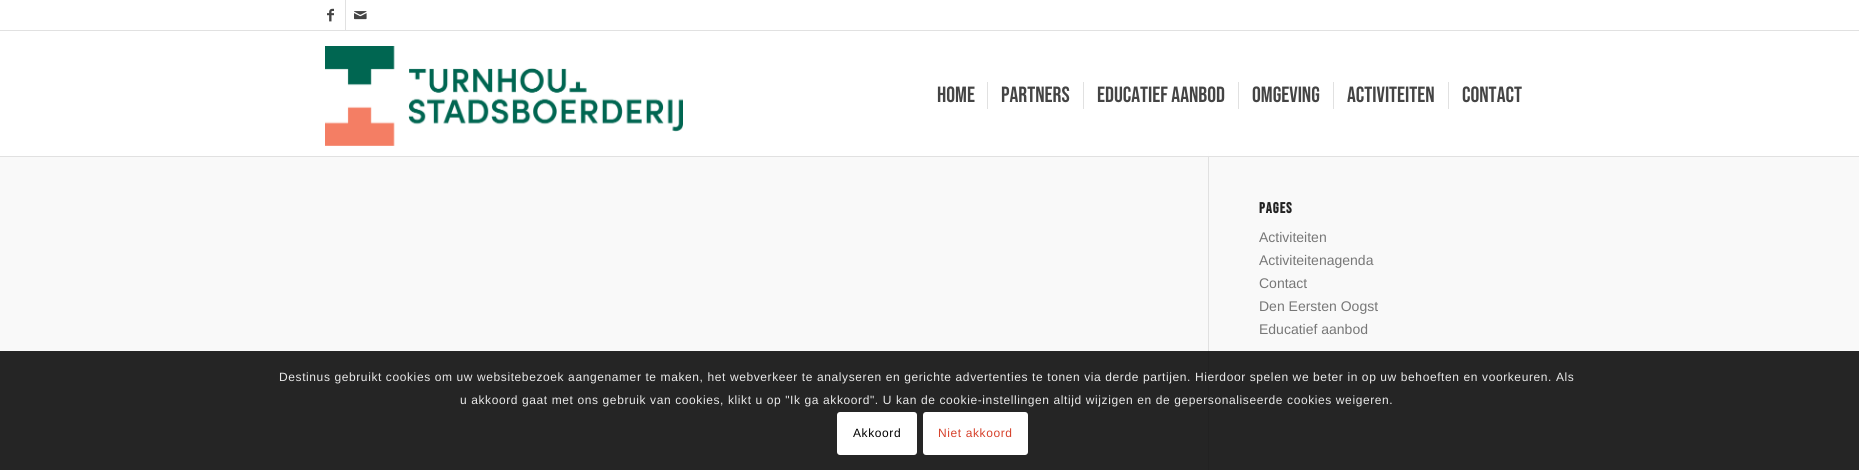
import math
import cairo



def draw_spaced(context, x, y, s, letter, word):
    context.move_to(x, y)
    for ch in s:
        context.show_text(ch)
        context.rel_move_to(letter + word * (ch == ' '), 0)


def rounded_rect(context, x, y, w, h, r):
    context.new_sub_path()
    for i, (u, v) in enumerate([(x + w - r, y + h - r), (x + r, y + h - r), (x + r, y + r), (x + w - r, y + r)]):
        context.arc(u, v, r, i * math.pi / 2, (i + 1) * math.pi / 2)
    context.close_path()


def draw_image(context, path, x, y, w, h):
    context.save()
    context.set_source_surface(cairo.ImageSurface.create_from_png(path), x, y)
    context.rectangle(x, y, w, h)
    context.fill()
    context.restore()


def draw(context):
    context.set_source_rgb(1, 1, 1)
    context.paint()
    context.set_source_rgb(225 / 255, 225 / 255, 225 / 255)
    context.rectangle(0, 30, 1859, 1)
    context.fill()
    context.rectangle(345, 0, 1, 30)
    context.fill()
    draw_image(context, "images/1.png", 327, 8, 7, 14)
    draw_image(context, "images/2.png", 354, 11, 13, 9)
    context.set_source_rgb(249 / 255, 249 / 255, 249 / 255)
    context.rectangle(0, 157, 1859, 313)
    context.fill()
    context.set_source_rgb(225 / 255, 225 / 255, 225 / 255)
    context.rectangle(1208, 151, 1, 319)
    context.fill()
    context.set_source_rgb(254 / 255, 254 / 255, 254 / 255)
    context.rectangle(1208, 151, 1, 6)
    context.fill()
    context.set_source_rgb(225 / 255, 225 / 255, 225 / 255)
    context.rectangle(0, 156, 1859, 1)
    context.fill()
    draw_image(context, "images/3.png", 325, 46, 358, 100)
    context.rectangle(987, 82, 1, 27)
    context.fill()
    context.rectangle(1083, 82, 1, 27)
    context.fill()
    context.rectangle(1238, 82, 1, 27)
    context.fill()
    context.rectangle(1333, 82, 1, 27)
    context.fill()
    context.rectangle(1448, 82, 1, 27)
    context.fill()
    context.set_source_rgba(0, 0, 0, 0.85)
    context.rectangle(0, 351, 1859, 119)
    context.fill()
    context.set_source_rgb(1, 1, 1)
    rounded_rect(context, 837, 412, 80, 43, 3)
    context.fill()
    rounded_rect(context, 924, 413, 103, 41, 2)
    context.fill_preserve()
    context.stroke()
    context.select_font_face("Bebas Neue")
    context.set_font_size(22)
    context.set_source_rgb(68 / 255, 68 / 255, 68 / 255)
    context.move_to(937, 102)
    context.show_text("Home")
    context.move_to(1001, 102)
    context.show_text("Partners")
    context.move_to(1097, 102)
    context.show_text("Educatief aanbod")
    context.move_to(1252, 102)
    context.show_text("Omgeving")
    context.move_to(1347, 102)
    context.show_text("Activiteiten")
    context.move_to(1462, 102)
    context.show_text("Contact")
    context.select_font_face("Bebas Neue", cairo.FontSlant.NORMAL, cairo.FontWeight.BOLD)
    context.set_font_size(15)
    context.set_source_rgb(34 / 255, 34 / 255, 34 / 255)
    draw_spaced(context, 1259, 213, "Pages", 1, 0)
    context.select_font_face("Liberation Sans")
    context.set_font_size(14)
    context.set_source_rgb(119 / 255, 119 / 255, 119 / 255)
    context.move_to(1259, 242)
    context.show_text("Activiteiten")
    context.move_to(1259, 265)
    context.show_text("Activiteitenagenda")
    context.move_to(1259, 288)
    context.show_text("Contact")
    context.move_to(1259, 311)
    context.show_text("Den Eersten Oogst")
    context.move_to(1259, 334)
    context.show_text("Educatief aanbod")
    context.set_font_size(12)
    context.set_source_rgb(233 / 255, 233 / 255, 233 / 255)
    draw_spaced(context, 279, 381, "Destinus gebruikt cookies om uw websitebezoek aangenamer te maken, het webverkeer te analyseren en gerichte advertenties te tonen via derde partijen. Hierdoor spelen we beter in op uw behoeften en voorkeuren. Als", 0.6, 0)
    draw_spaced(context, 460, 404, "u akkoord gaat met ons gebruik van cookies, klikt u op \"Ik ga akkoord\". U kan de cookie-instellingen altijd wijzigen en de gepersonaliseerde cookies weigeren.", 0.6, 0)
    context.set_source_rgb(0, 0, 0)
    draw_spaced(context, 853, 437, "Akkoord", 0.6, 0)
    context.set_source_rgb(214 / 255, 65 / 255, 43 / 255)
    draw_spaced(context, 938, 437, "Niet akkoord", 0.6, 0)


surface = cairo.ImageSurface(cairo.Format.RGB24, 1859, 470)
context = cairo.Context(surface)
options = cairo.FontOptions()
options.set_hint_metrics(cairo.HintMetrics.OFF)
options.set_hint_style(cairo.HintStyle.NONE)
context.set_font_options(options)
context.set_miter_limit(4)
draw(context)
surface.write_to_png("out.png")
